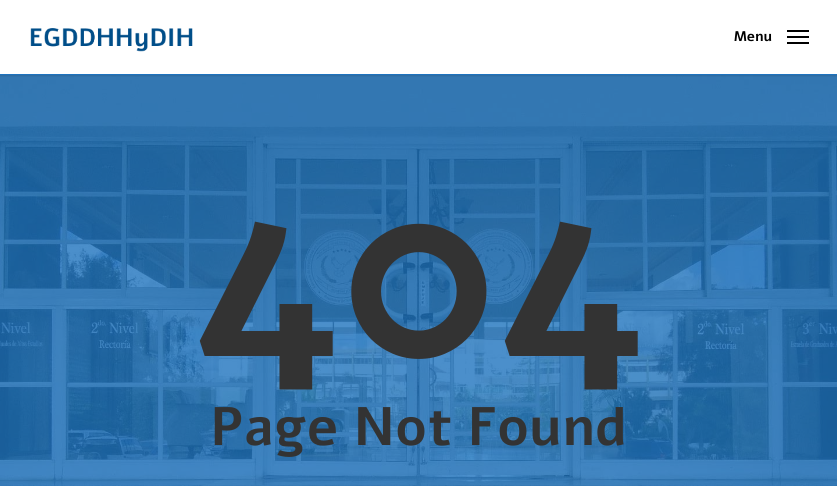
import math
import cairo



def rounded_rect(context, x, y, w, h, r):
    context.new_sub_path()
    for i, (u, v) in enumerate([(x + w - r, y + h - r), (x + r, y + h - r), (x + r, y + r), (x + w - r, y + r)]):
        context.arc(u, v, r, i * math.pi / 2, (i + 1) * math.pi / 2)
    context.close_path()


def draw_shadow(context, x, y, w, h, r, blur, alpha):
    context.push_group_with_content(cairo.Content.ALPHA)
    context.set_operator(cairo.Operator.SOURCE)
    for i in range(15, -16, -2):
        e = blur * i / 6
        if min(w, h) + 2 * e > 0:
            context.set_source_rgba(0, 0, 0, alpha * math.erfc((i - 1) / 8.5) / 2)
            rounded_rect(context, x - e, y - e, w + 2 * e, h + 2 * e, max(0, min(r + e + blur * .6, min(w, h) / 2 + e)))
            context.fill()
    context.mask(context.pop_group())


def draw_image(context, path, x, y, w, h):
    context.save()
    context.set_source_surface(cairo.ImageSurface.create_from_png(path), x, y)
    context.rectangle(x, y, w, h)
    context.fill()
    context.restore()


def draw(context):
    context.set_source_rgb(1, 1, 1)
    context.paint()
    draw_image(context, "images/2.png", 0, 75, 837, 411)
    context.save()
    context.rectangle(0, 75, 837, 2)
    context.clip()
    context.set_source_rgb(0, 0, 0)
    draw_shadow(context, 0, 0, 837, 75, 0, 1.5, 0.22)
    context.restore()
    context.set_source_rgb(30 / 255, 115 / 255, 190 / 255)
    context.rectangle(0, 74, 837, 1)
    context.fill()
    draw_image(context, "images/1.png", 30, 28, 163, 24)
    context.set_source_rgb(0, 0, 0)
    context.rectangle(787, 30, 22, 2)
    context.fill()
    context.rectangle(787, 42, 22, 2)
    context.fill()
    context.rectangle(787, 36, 22, 2)
    context.fill()
    context.select_font_face("Alef", cairo.FontSlant.NORMAL, cairo.FontWeight.BOLD)
    context.set_font_size(14)
    context.move_to(734, 41)
    context.show_text("Menu")
    context.set_font_size(250)
    context.set_source_rgb(51 / 255, 51 / 255, 51 / 255)
    context.move_to(190, 356)
    context.show_text("404")
    context.set_font_size(54)
    context.move_to(210, 445)
    context.show_text("Page Not Found")


surface = cairo.ImageSurface(cairo.Format.RGB24, 837, 486)
context = cairo.Context(surface)
options = cairo.FontOptions()
options.set_hint_metrics(cairo.HintMetrics.OFF)
options.set_hint_style(cairo.HintStyle.NONE)
context.set_font_options(options)
context.set_miter_limit(4)
draw(context)
surface.write_to_png("out.png")
